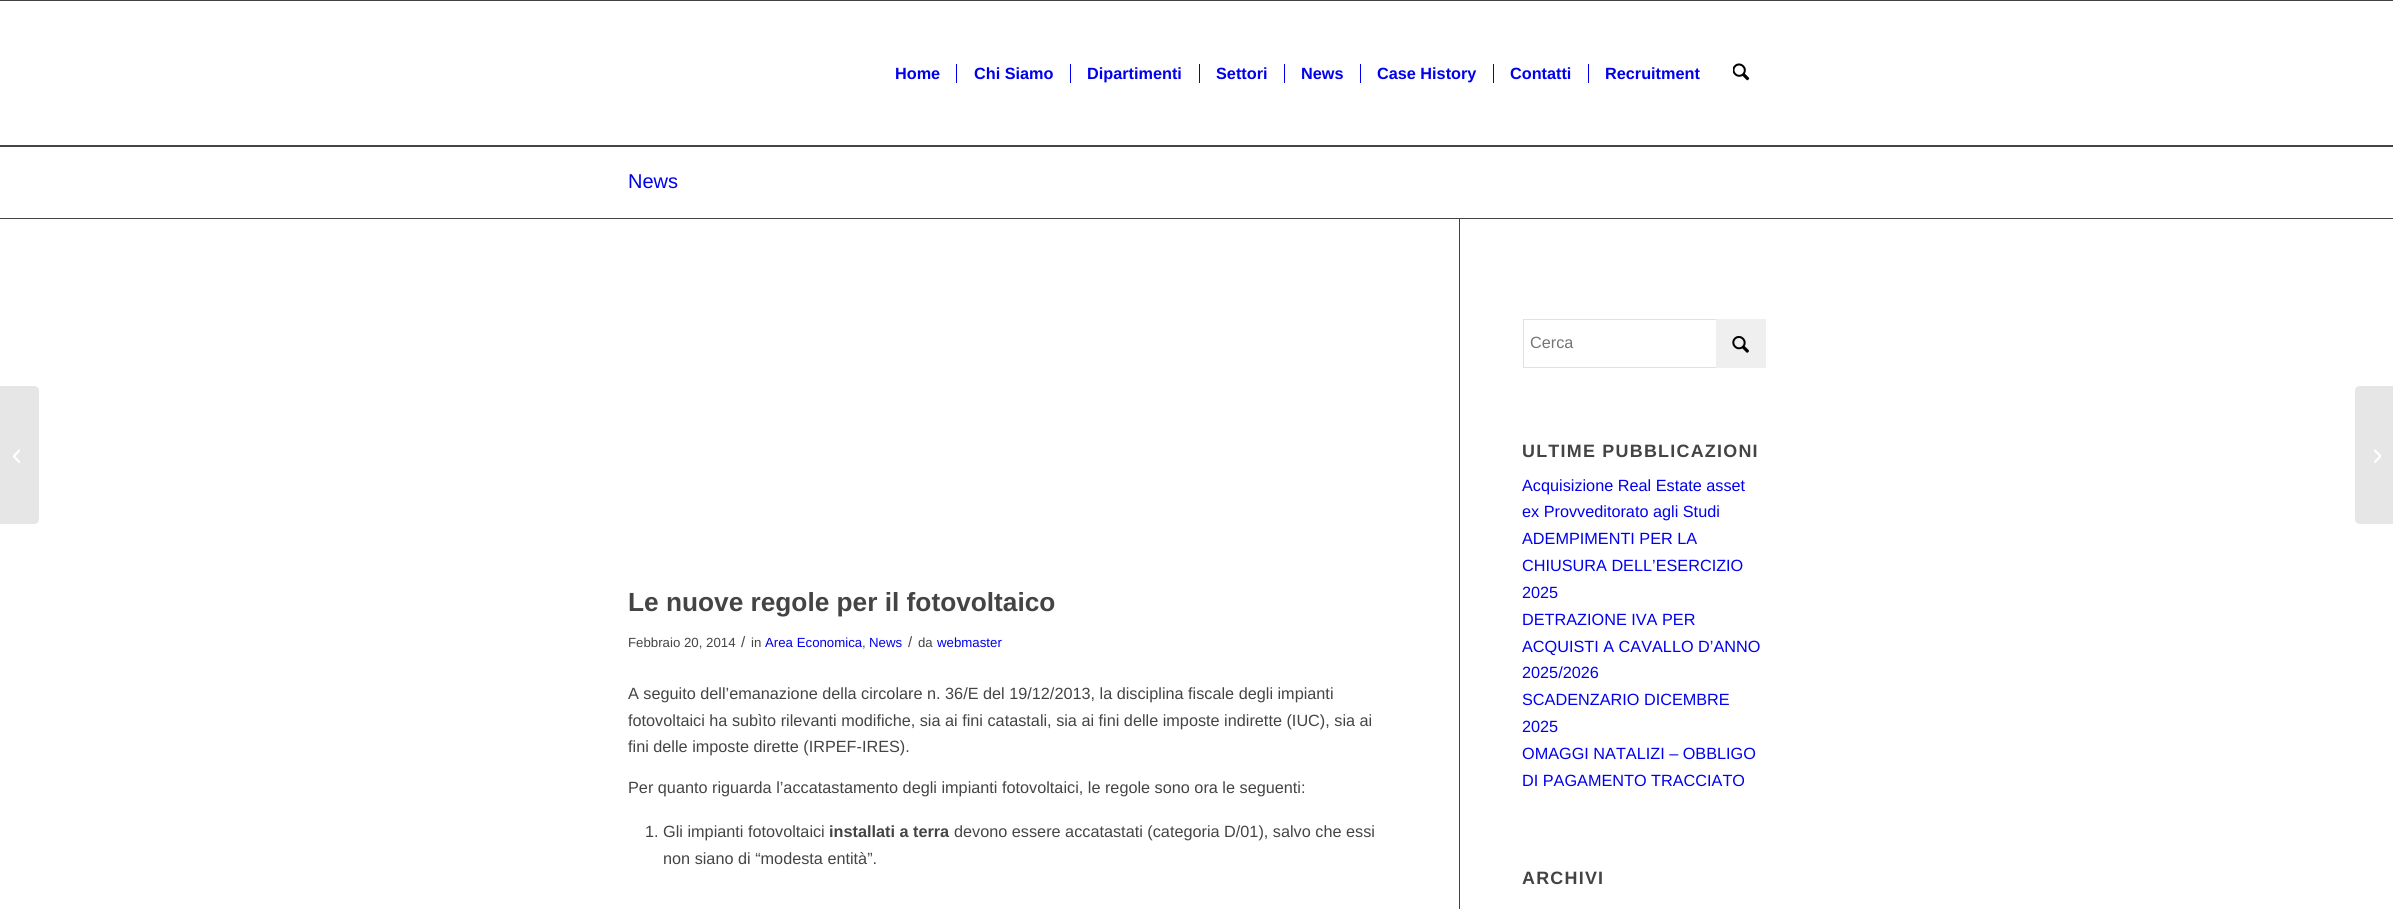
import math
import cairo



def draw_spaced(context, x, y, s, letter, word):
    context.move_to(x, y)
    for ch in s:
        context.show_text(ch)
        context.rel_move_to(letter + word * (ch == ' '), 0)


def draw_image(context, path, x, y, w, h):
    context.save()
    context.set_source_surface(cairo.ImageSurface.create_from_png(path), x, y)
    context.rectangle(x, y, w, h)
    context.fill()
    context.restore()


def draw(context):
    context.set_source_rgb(1, 1, 1)
    context.paint()
    context.set_source_rgb(68 / 255, 68 / 255, 68 / 255)
    context.rectangle(0, 0, 2393, 1)
    context.fill()
    context.set_source_rgb(0, 0, 238 / 255)
    context.rectangle(956, 64, 1, 19)
    context.fill()
    context.rectangle(1070, 64, 1, 19)
    context.fill()
    context.rectangle(1199, 64, 1, 19)
    context.fill()
    context.rectangle(1284, 64, 1, 19)
    context.fill()
    context.rectangle(1360, 64, 1, 19)
    context.fill()
    context.rectangle(1493, 64, 1, 19)
    context.fill()
    context.rectangle(1588, 64, 1, 19)
    context.fill()
    draw_image(context, "images/1.png", 1733, 63, 17, 18)
    context.set_source_rgb(230 / 255, 230 / 255, 230 / 255)
    context.new_path()
    context.move_to(0, 386)
    context.line_to(34, 386)
    context.curve_to(37, 386, 39, 388, 39, 391)
    context.line_to(39, 519)
    context.curve_to(39, 522, 37, 524, 34, 524)
    context.line_to(0, 524)
    context.close_path()
    context.fill()
    draw_image(context, "images/2.png", 13, 449, 7, 14)
    context.set_source_rgb(68 / 255, 68 / 255, 68 / 255)
    context.rectangle(0, 145, 2393, 2)
    context.fill()
    context.rectangle(0, 218, 2393, 1)
    context.fill()
    context.rectangle(1459, 219, 1, 690)
    context.fill()
    context.rectangle(1523.5, 319.5, 242, 48)
    context.set_source_rgb(225 / 255, 225 / 255, 225 / 255)
    context.set_line_width(1)
    context.stroke()
    context.set_source_rgb(239 / 255, 239 / 255, 239 / 255)
    context.rectangle(1716, 319, 50, 49)
    context.fill()
    draw_image(context, "images/3.png", 1732, 336, 17, 17)
    context.set_source_rgb(230 / 255, 230 / 255, 230 / 255)
    context.new_path()
    context.move_to(2360, 386)
    context.line_to(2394, 386)
    context.line_to(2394, 524)
    context.line_to(2360, 524)
    context.curve_to(2357, 524, 2355, 522, 2355, 519)
    context.line_to(2355, 391)
    context.curve_to(2355, 388, 2357, 386, 2360, 386)
    context.close_path()
    context.fill()
    draw_image(context, "images/4.png", 2374, 449, 7, 14)
    context.select_font_face("Liberation Sans", cairo.FontSlant.NORMAL, cairo.FontWeight.BOLD)
    context.set_font_size(16.25)
    context.set_source_rgb(0, 0, 238 / 255)
    context.move_to(895, 79)
    context.show_text("Home")
    context.move_to(974, 79)
    context.show_text("Chi Siamo")
    context.move_to(1087, 79)
    context.show_text("Dipartimenti")
    context.move_to(1216, 79)
    context.show_text("Settori")
    context.move_to(1301, 79)
    context.show_text("News")
    context.move_to(1377, 79)
    context.show_text("Case History")
    context.move_to(1510, 79)
    context.show_text("Contatti")
    context.move_to(1605, 79)
    context.show_text("Recruitment")
    context.select_font_face("Liberation Sans")
    context.set_font_size(20)
    context.move_to(628, 188)
    context.show_text("News")
    context.select_font_face("Liberation Sans", cairo.FontSlant.NORMAL, cairo.FontWeight.BOLD)
    context.set_font_size(26.25)
    context.set_source_rgb(68 / 255, 68 / 255, 68 / 255)
    context.move_to(628, 611)
    context.show_text("Le nuove regole per il fotovoltaico")
    context.select_font_face("Liberation Sans")
    context.set_font_size(13.25)
    context.move_to(628, 647)
    context.show_text("Febbraio 20, 2014")
    context.set_font_size(15)
    context.move_to(741, 647)
    context.show_text("/")
    context.set_font_size(13.25)
    context.move_to(751, 647)
    context.show_text("in")
    context.set_source_rgb(0, 0, 238 / 255)
    context.move_to(765, 647)
    context.show_text("Area Economica")
    context.set_source_rgb(68 / 255, 68 / 255, 68 / 255)
    context.move_to(862, 647)
    context.show_text(",")
    context.set_source_rgb(0, 0, 238 / 255)
    context.move_to(869, 647)
    context.show_text("News")
    context.set_font_size(15)
    context.set_source_rgb(68 / 255, 68 / 255, 68 / 255)
    context.move_to(908, 647)
    context.show_text("/")
    context.set_font_size(13.25)
    context.move_to(918, 647)
    context.show_text("da")
    context.set_source_rgb(0, 0, 238 / 255)
    context.move_to(937, 647)
    context.show_text("webmaster")
    context.set_font_size(16.25)
    context.set_source_rgb(68 / 255, 68 / 255, 68 / 255)
    context.move_to(628, 699)
    context.show_text("A seguito dell’emanazione della circolare n. 36/E del 19/12/2013, la disciplina fiscale degli impianti")
    context.move_to(628, 726)
    context.show_text("fotovoltaici ha subìto rilevanti modifiche, sia ai fini catastali, sia ai fini delle imposte indirette (IUC), sia ai")
    context.move_to(628, 752)
    context.show_text("fini delle imposte dirette (IRPEF-IRES).")
    context.move_to(628, 793)
    context.show_text("Per quanto riguarda l’accatastamento degli impianti fotovoltaici, le regole sono ora le seguenti:")
    context.move_to(645, 837)
    context.show_text("1. Gli impianti fotovoltaici")
    context.select_font_face("Liberation Sans", cairo.FontSlant.NORMAL, cairo.FontWeight.BOLD)
    context.move_to(829, 837)
    context.show_text("installati a terra")
    context.select_font_face("Liberation Sans")
    context.move_to(954, 837)
    context.show_text("devono essere accatastati (categoria D/01), salvo che essi")
    context.move_to(663, 864)
    context.show_text("non siano di “modesta entità”.")
    context.set_source_rgb(117 / 255, 117 / 255, 117 / 255)
    context.move_to(1530, 348)
    context.show_text("Cerca")
    context.select_font_face("Liberation Sans", cairo.FontSlant.NORMAL, cairo.FontWeight.BOLD)
    context.set_font_size(17.9)
    context.set_source_rgb(68 / 255, 68 / 255, 68 / 255)
    draw_spaced(context, 1522, 457, "ULTIME PUBBLICAZIONI", 1.25, 0)
    context.select_font_face("Liberation Sans")
    context.set_font_size(16.25)
    context.set_source_rgb(0, 0, 238 / 255)
    context.move_to(1522, 491)
    context.show_text("Acquisizione Real Estate asset")
    context.move_to(1522, 517)
    context.show_text("ex Provveditorato agli Studi")
    context.move_to(1522, 544)
    context.show_text("ADEMPIMENTI PER LA")
    context.move_to(1522, 571)
    context.show_text("CHIUSURA DELL’ESERCIZIO")
    context.move_to(1522, 598)
    context.show_text("2025")
    context.move_to(1522, 625)
    context.show_text("DETRAZIONE IVA PER")
    context.move_to(1522, 652)
    context.show_text("ACQUISTI A CAVALLO D’ANNO")
    context.move_to(1522, 678)
    context.show_text("2025/2026")
    context.move_to(1522, 705)
    context.show_text("SCADENZARIO DICEMBRE")
    context.move_to(1522, 732)
    context.show_text("2025")
    context.move_to(1522, 759)
    context.show_text("OMAGGI NATALIZI – OBBLIGO")
    context.move_to(1522, 786)
    context.show_text("DI PAGAMENTO TRACCIATO")
    context.select_font_face("Liberation Sans", cairo.FontSlant.NORMAL, cairo.FontWeight.BOLD)
    context.set_font_size(17.9)
    context.set_source_rgb(68 / 255, 68 / 255, 68 / 255)
    draw_spaced(context, 1522, 884, "ARCHIVI", 1.25, 0)


surface = cairo.ImageSurface(cairo.Format.RGB24, 2393, 909)
context = cairo.Context(surface)
options = cairo.FontOptions()
options.set_hint_metrics(cairo.HintMetrics.OFF)
options.set_hint_style(cairo.HintStyle.NONE)
context.set_font_options(options)
context.set_miter_limit(4)
draw(context)
surface.write_to_png("out.png")
